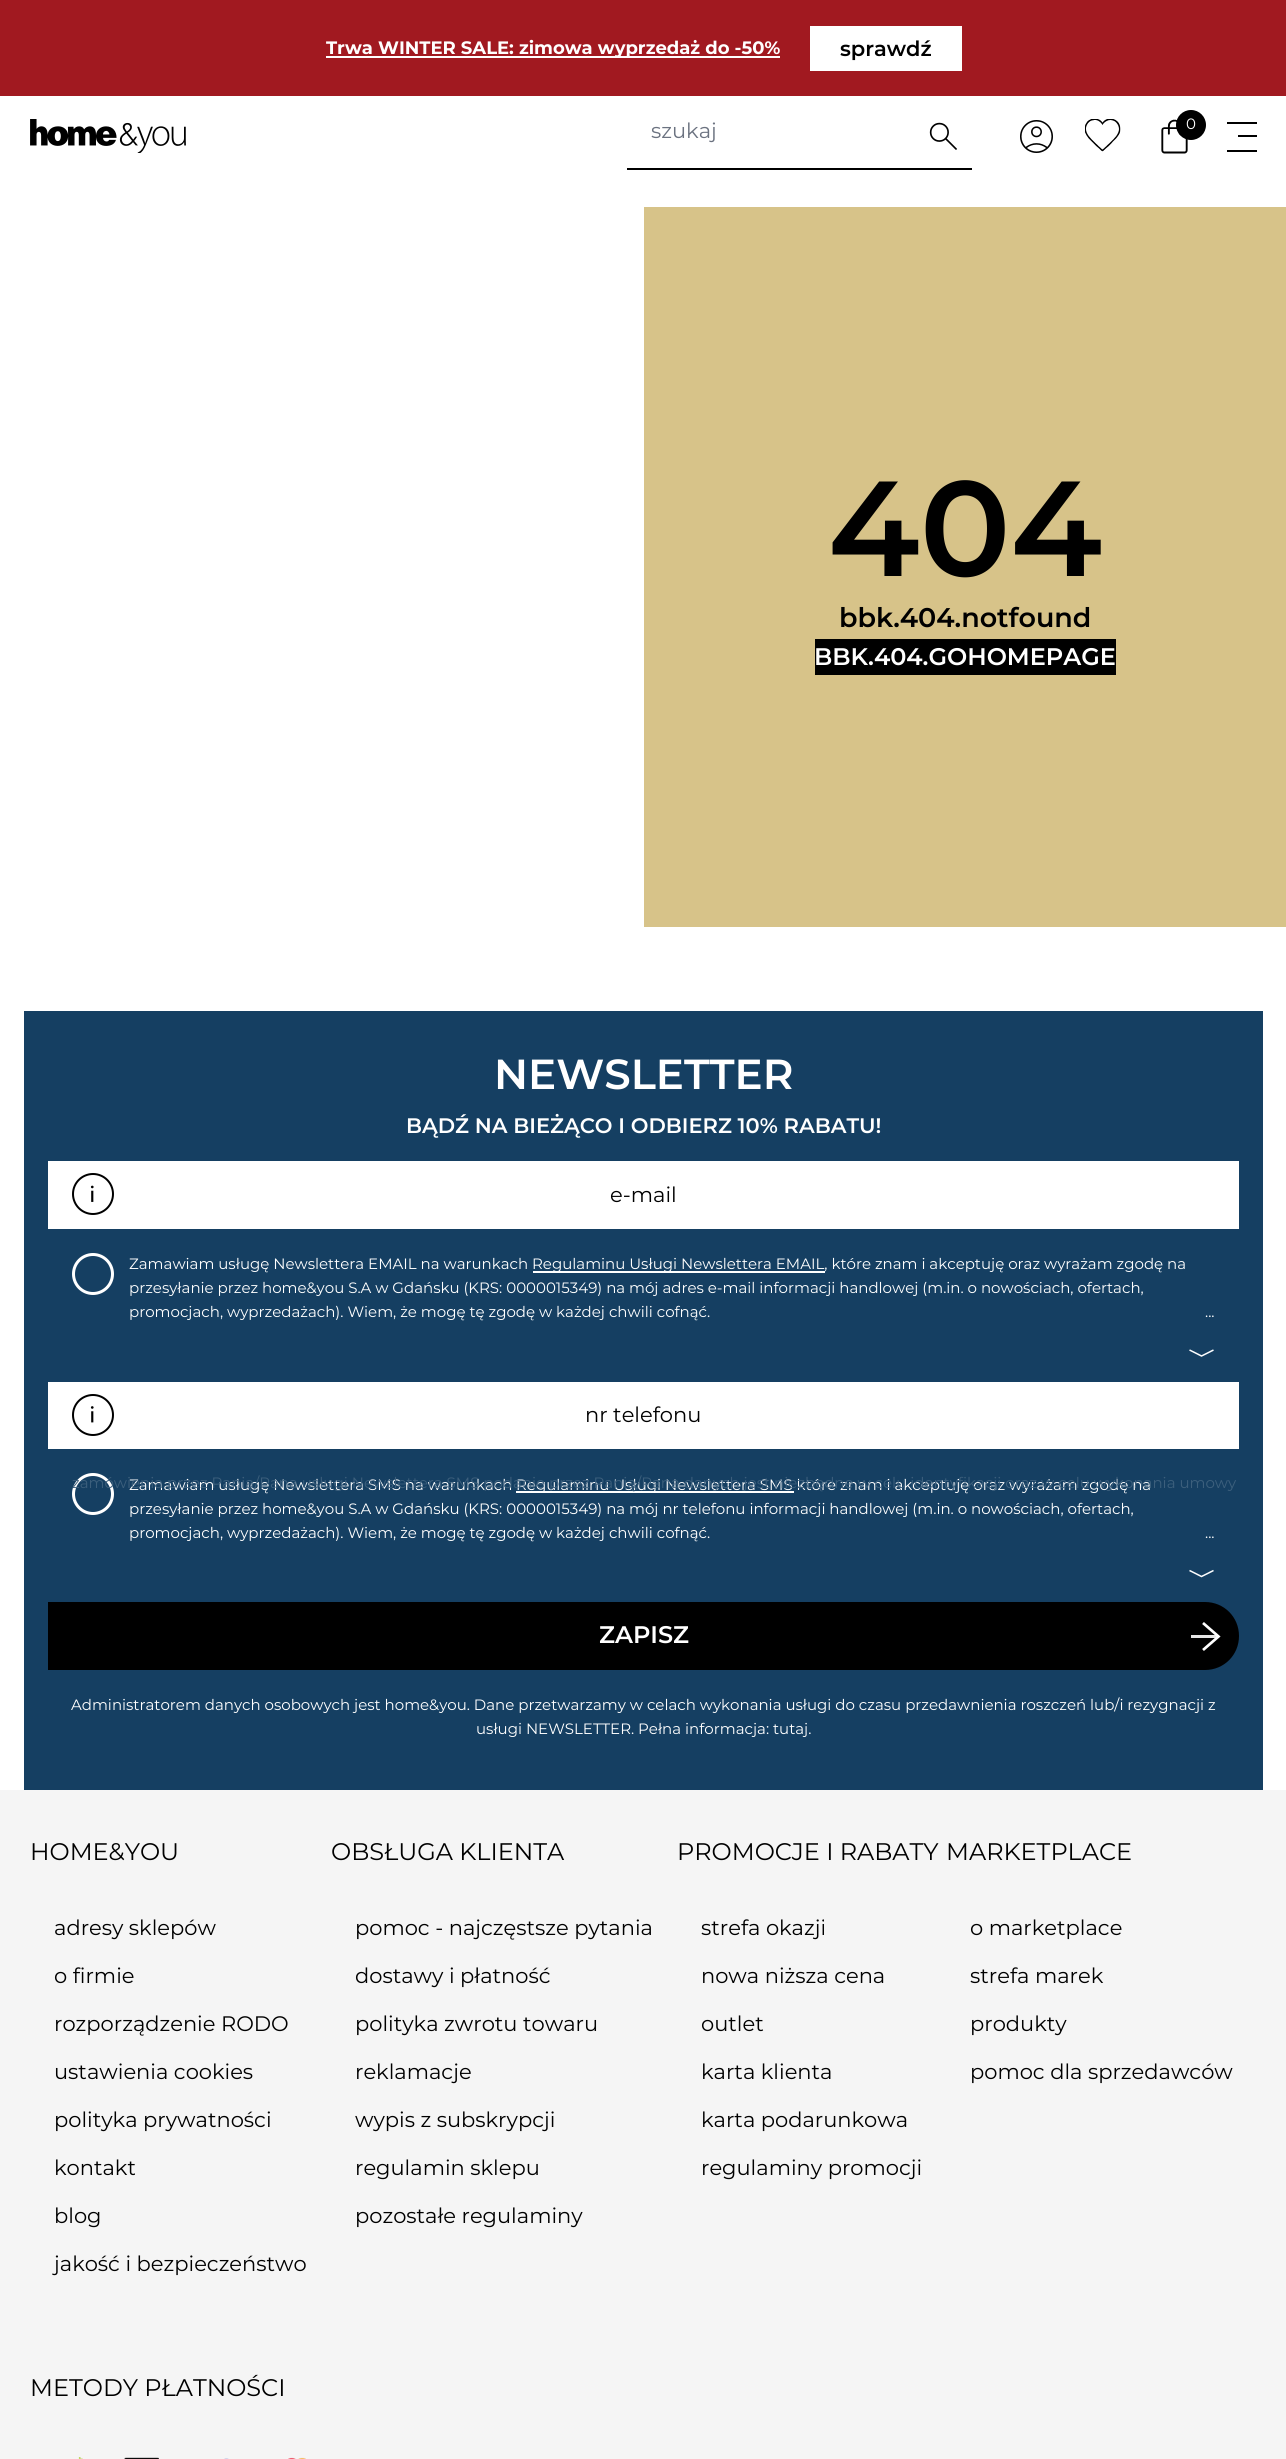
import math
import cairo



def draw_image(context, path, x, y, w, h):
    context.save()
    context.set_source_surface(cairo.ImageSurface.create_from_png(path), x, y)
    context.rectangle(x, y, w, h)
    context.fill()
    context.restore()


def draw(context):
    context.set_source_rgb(1, 1, 1)
    context.paint()
    context.set_source_rgb(161 / 255, 25 / 255, 32 / 255)
    context.rectangle(0, 0, 1286, 96)
    context.fill()
    context.set_source_rgb(1, 1, 1)
    context.rectangle(326, 56, 454, 2)
    context.fill()
    context.rectangle(810, 26, 152, 45)
    context.fill()
    draw_image(context, "images/1.png", 30, 119, 156, 34)
    context.set_source_rgb(0, 0, 0)
    context.rectangle(627, 168, 345, 2)
    context.fill()
    draw_image(context, "images/2.png", 929, 122, 28, 28)
    draw_image(context, "images/3.png", 1020, 120, 33, 33)
    draw_image(context, "images/4.png", 1085, 119, 36, 33)
    draw_image(context, "images/5.png", 1161, 119, 27, 35)
    context.arc(1191, 125, 15, 0, 2 * math.pi)
    context.fill()
    context.rectangle(1227, 122, 30, 2)
    context.fill()
    context.rectangle(1238, 135, 19, 2)
    context.fill()
    context.rectangle(1227, 150, 30, 2)
    context.fill()
    context.set_source_rgb(215 / 255, 195 / 255, 137 / 255)
    context.rectangle(644, 207, 642, 720)
    context.fill()
    context.set_source_rgb(0, 0, 0)
    context.rectangle(815, 639, 301, 36)
    context.fill()
    context.set_source_rgb(21 / 255, 63 / 255, 98 / 255)
    context.rectangle(24, 1011, 1239, 779)
    context.fill()
    context.set_source_rgb(1, 1, 1)
    context.rectangle(48, 1161, 1191, 68)
    context.fill()
    context.arc(93, 1194, 20, 0, 2 * math.pi)
    context.set_source_rgb(0, 0, 0)
    context.stroke()
    draw_image(context, "images/6.png", 90, 1185, 4, 17)
    context.arc(93, 1274, 19.5, 0, 2 * math.pi)
    context.set_source_rgb(1, 1, 1)
    context.set_line_width(3)
    context.stroke()
    context.rectangle(533, 1271, 292, 2)
    context.fill()
    context.new_path()
    context.move_to(1213.5, 1350)
    context.line_to(1201.5, 1356)
    context.line_to(1189.5, 1350)
    context.set_line_width(1.5)
    context.stroke()
    context.rectangle(48, 1382, 1191, 67)
    context.fill()
    context.arc(93, 1415, 20, 0, 2 * math.pi)
    context.set_source_rgb(0, 0, 0)
    context.set_line_width(2)
    context.stroke()
    draw_image(context, "images/7.png", 90, 1406, 4, 17)
    context.arc(93, 1494, 19.5, 0, 2 * math.pi)
    context.set_source_rgb(1, 1, 1)
    context.set_line_width(3)
    context.stroke()
    context.rectangle(516, 1491, 278, 2)
    context.fill()
    context.new_path()
    context.move_to(1213.5, 1570.5)
    context.line_to(1201.5, 1576.5)
    context.line_to(1189.5, 1570.5)
    context.set_line_width(1.5)
    context.stroke()
    context.set_source_rgb(0, 0, 0)
    context.new_path()
    context.move_to(48, 1602)
    context.line_to(1205, 1602)
    context.curve_to(1224, 1602, 1239, 1617, 1239, 1636)
    context.curve_to(1239, 1655, 1224, 1670, 1205, 1670)
    context.line_to(48, 1670)
    context.close_path()
    context.fill()
    context.new_path()
    context.move_to(1203, 1623)
    context.line_to(1218.5, 1636.5)
    context.line_to(1203, 1650)
    context.set_source_rgb(1, 1, 1)
    context.set_line_width(2.7)
    context.stroke()
    context.set_source_rgba(1, 1, 1, 0.9)
    context.rectangle(1191, 1635, 28, 3)
    context.fill()
    context.set_source_rgb(245 / 255, 245 / 255, 245 / 255)
    context.rectangle(0, 1790, 1286, 669)
    context.fill()
    draw_image(context, "images/8.png", 78, 2457, 5, 2)
    draw_image(context, "images/9.png", 124, 2457, 35, 2)
    draw_image(context, "images/10.png", 224, 2458, 5, 1)
    draw_image(context, "images/11.png", 288, 2457, 18, 2)
    context.select_font_face("Montserrat", cairo.FontSlant.NORMAL, cairo.FontWeight.BOLD)
    context.set_font_size(18)
    context.set_source_rgb(1, 1, 1)
    context.move_to(326, 54)
    context.show_text("Trwa WINTER SALE: zimowa wyprzedaż do -50%")
    context.select_font_face("Montserrat SemiBold")
    context.set_font_size(21)
    context.set_source_rgb(0, 0, 0)
    context.move_to(840, 56)
    context.show_text("sprawdź")
    context.select_font_face("Montserrat")
    context.set_source_rgb(107 / 255, 114 / 255, 128 / 255)
    context.move_to(651, 138)
    context.show_text("szukaj")
    context.set_font_size(15)
    context.set_source_rgb(1, 1, 1)
    context.move_to(1186, 129)
    context.show_text("0")
    context.select_font_face("Montserrat SemiBold")
    context.set_font_size(135)
    context.set_source_rgb(0, 0, 0)
    context.move_to(828, 576)
    context.show_text("404")
    context.set_font_size(27)
    context.move_to(839, 627)
    context.show_text("bbk.404.notfound")
    context.set_font_size(24)
    context.set_source_rgb(1, 1, 1)
    context.move_to(814, 665)
    context.show_text("BBK.404.GOHOMEPAGE")
    context.set_font_size(42)
    context.move_to(494, 1089)
    context.show_text("NEWSLETTER")
    context.set_font_size(21)
    context.move_to(406, 1133)
    context.show_text("BĄDŹ NA BIEŻĄCO I ODBIERZ 10% RABATU!")
    context.select_font_face("Montserrat")
    context.set_source_rgb(0, 0, 0)
    context.move_to(610, 1202)
    context.show_text("e-mail")
    context.set_font_size(15)
    context.set_source_rgb(1, 1, 1)
    context.move_to(129, 1269)
    context.show_text("Zamawiam usługę Newslettera EMAIL na warunkach")
    context.move_to(532, 1269)
    context.show_text("Regulaminu Usługi Newslettera EMAIL, które znam i akceptuję oraz wyrażam zgodę na")
    context.move_to(129, 1293)
    context.show_text("przesyłanie przez home&you S.A w Gdańsku (KRS: 0000015349) na mój adres e-mail informacji handlowej (m.in. o nowościach, ofertach,")
    context.move_to(129, 1317)
    context.show_text("promocjach, wyprzedażach). Wiem, że mogę tę zgodę w każdej chwili cofnąć.")
    context.move_to(1205, 1317)
    context.show_text("...")
    context.set_font_size(21)
    context.set_source_rgb(0, 0, 0)
    context.move_to(585, 1422)
    context.show_text("nr telefonu")
    context.set_font_size(15)
    context.set_source_rgb(1, 1, 1)
    context.move_to(129, 1490)
    context.show_text("Zamawiam usługę Newslettera SMS na warunkach")
    context.move_to(516, 1490)
    context.show_text("Regulaminu Usługi Newslettera SMS które znam i akceptuję oraz wyrażam zgodę na")
    context.set_source_rgb(60 / 255, 95 / 255, 124 / 255)
    context.move_to(72, 1488)
    context.show_text("zamówienia przez Panią/Pana usługi Newslettera SMS podanie przez Panią/Pana danych jest niezbędne w celu identyfikacji oraz w celu wykonania umowy")
    context.set_source_rgb(1, 1, 1)
    context.move_to(129, 1514)
    context.show_text("przesyłanie przez home&you S.A w Gdańsku (KRS: 0000015349) na mój nr telefonu informacji handlowej (m.in. o nowościach, ofertach,")
    context.move_to(129, 1538)
    context.show_text("promocjach, wyprzedażach). Wiem, że mogę tę zgodę w każdej chwili cofnąć.")
    context.move_to(1205, 1538)
    context.show_text("...")
    context.select_font_face("Montserrat SemiBold")
    context.set_font_size(24)
    context.move_to(599, 1643)
    context.show_text("ZAPISZ")
    context.select_font_face("Montserrat")
    context.set_font_size(15)
    context.move_to(71, 1710)
    context.show_text("Administratorem danych osobowych jest home&you. Dane przetwarzamy w celach wykonania usługi do czasu przedawnienia roszczeń lub/i rezygnacji z")
    context.move_to(476, 1734)
    context.show_text("usługi NEWSLETTER. Pełna informacja: tutaj.")
    context.set_font_size(24)
    context.set_source_rgb(0, 0, 0)
    context.move_to(30, 1860)
    context.show_text("HOME&YOU")
    context.set_font_size(21)
    context.move_to(54, 1935)
    context.show_text("adresy sklepów")
    context.move_to(54, 1983)
    context.show_text("o firmie")
    context.move_to(54, 2031)
    context.show_text("rozporządzenie RODO")
    context.move_to(54, 2079)
    context.show_text("ustawienia cookies")
    context.move_to(54, 2127)
    context.show_text("polityka prywatności")
    context.move_to(54, 2175)
    context.show_text("kontakt")
    context.move_to(54, 2223)
    context.show_text("blog")
    context.move_to(54, 2271)
    context.show_text("jakość i bezpieczeństwo")
    context.set_font_size(24)
    context.move_to(331, 1860)
    context.show_text("OBSŁUGA KLIENTA")
    context.set_font_size(21)
    context.move_to(355, 1935)
    context.show_text("pomoc - najczęstsze pytania")
    context.move_to(355, 1983)
    context.show_text("dostawy i płatność")
    context.move_to(355, 2031)
    context.show_text("polityka zwrotu towaru")
    context.move_to(355, 2079)
    context.show_text("reklamacje")
    context.move_to(355, 2127)
    context.show_text("wypis z subskrypcji")
    context.move_to(355, 2175)
    context.show_text("regulamin sklepu")
    context.move_to(355, 2223)
    context.show_text("pozostałe regulaminy")
    context.set_font_size(24)
    context.move_to(677, 1860)
    context.show_text("PROMOCJE I RABATY")
    context.set_font_size(21)
    context.move_to(701, 1935)
    context.show_text("strefa okazji")
    context.move_to(701, 1983)
    context.show_text("nowa niższa cena")
    context.move_to(701, 2031)
    context.show_text("outlet")
    context.move_to(701, 2079)
    context.show_text("karta klienta")
    context.move_to(701, 2127)
    context.show_text("karta podarunkowa")
    context.move_to(701, 2175)
    context.show_text("regulaminy promocji")
    context.set_font_size(24)
    context.move_to(946, 1860)
    context.show_text("MARKETPLACE")
    context.set_font_size(21)
    context.move_to(970, 1935)
    context.show_text("o marketplace")
    context.move_to(970, 1983)
    context.show_text("strefa marek")
    context.move_to(970, 2031)
    context.show_text("produkty")
    context.move_to(970, 2079)
    context.show_text("pomoc dla sprzedawców")
    context.set_font_size(24)
    context.move_to(30, 2396)
    context.show_text("METODY PŁATNOŚCI")


surface = cairo.ImageSurface(cairo.Format.RGB24, 1286, 2459)
context = cairo.Context(surface)
options = cairo.FontOptions()
options.set_hint_metrics(cairo.HintMetrics.OFF)
options.set_hint_style(cairo.HintStyle.NONE)
context.set_font_options(options)
context.set_miter_limit(4)
draw(context)
surface.write_to_png("out.png")
